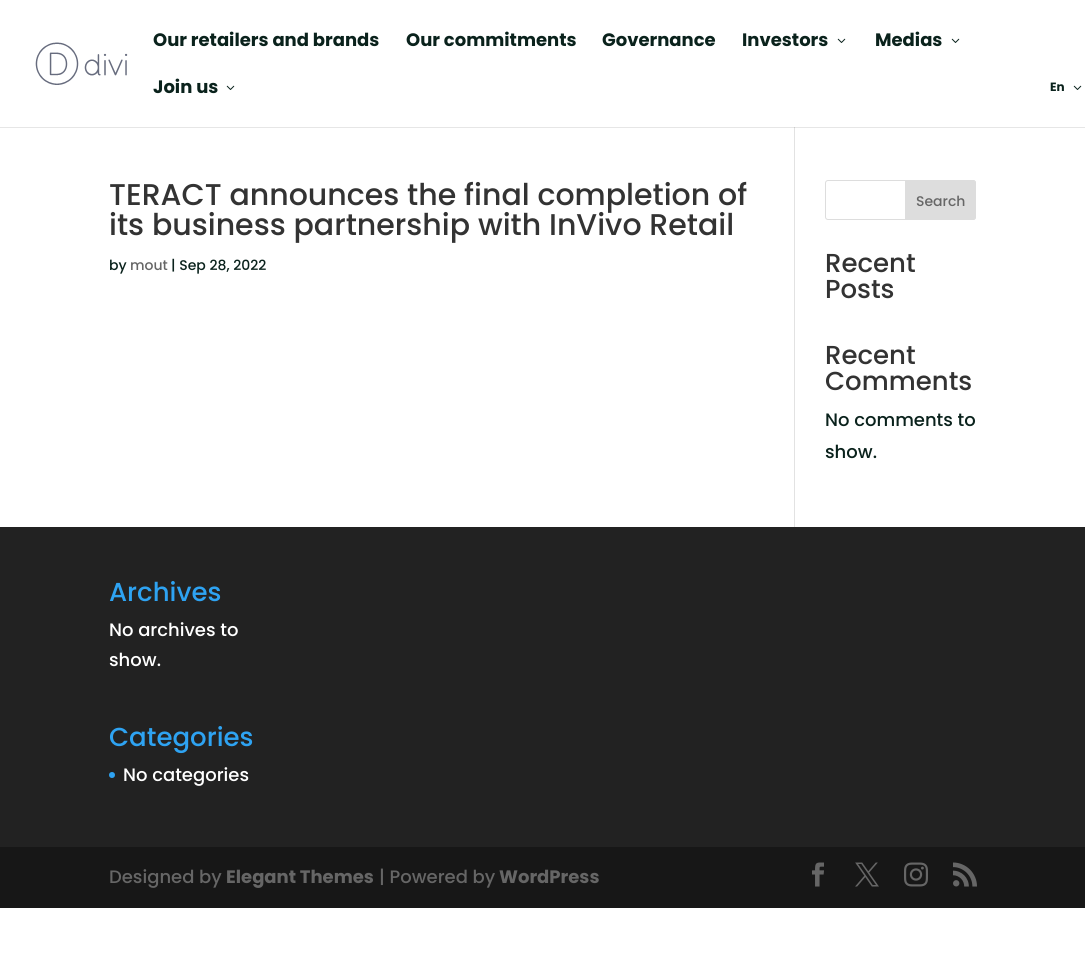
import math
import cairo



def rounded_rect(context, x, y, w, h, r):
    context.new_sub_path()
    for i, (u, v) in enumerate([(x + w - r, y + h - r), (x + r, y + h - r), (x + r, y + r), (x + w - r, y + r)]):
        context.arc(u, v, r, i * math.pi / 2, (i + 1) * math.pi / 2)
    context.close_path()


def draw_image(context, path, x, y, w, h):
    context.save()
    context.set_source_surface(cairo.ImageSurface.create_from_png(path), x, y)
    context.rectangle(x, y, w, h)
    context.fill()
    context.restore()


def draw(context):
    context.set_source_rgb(1, 1, 1)
    context.paint()
    context.set_source_rgb(230 / 255, 230 / 255, 230 / 255)
    context.rectangle(0, 127, 1085, 1)
    context.fill()
    context.set_source_rgb(226 / 255, 226 / 255, 226 / 255)
    context.rectangle(794, 122, 1, 405)
    context.fill()
    context.set_source_rgb(1, 1, 1)
    context.rectangle(794, 122, 1, 5)
    context.fill()
    draw_image(context, "images/1.png", 35, 42, 93, 43)
    draw_image(context, "images/2.png", 837, 38, 9, 5)
    draw_image(context, "images/2.png", 951, 38, 9, 5)
    draw_image(context, "images/2.png", 226, 85, 9, 5)
    draw_image(context, "images/2.png", 1073, 85, 9, 5)
    context.set_source_rgb(203 / 255, 203 / 255, 203 / 255)
    context.rectangle(794, 127, 1, 1)
    context.fill()
    rounded_rect(context, 825.5, 180.5, 150, 39, 2.5)
    context.set_source_rgb(221 / 255, 221 / 255, 221 / 255)
    context.set_line_width(1)
    context.stroke()
    context.new_path()
    context.move_to(905.5, 180.5)
    context.line_to(973, 180.5)
    context.curve_to(974.5, 180.5, 975.5, 181.5, 975.5, 183)
    context.line_to(975.5, 217)
    context.curve_to(975.5, 218.5, 974.5, 219.5, 973, 219.5)
    context.line_to(905.5, 219.5)
    context.close_path()
    context.fill_preserve()
    context.stroke()
    context.set_source_rgb(34 / 255, 34 / 255, 34 / 255)
    context.rectangle(0, 527, 1085, 320)
    context.fill()
    context.set_source_rgb(46 / 255, 163 / 255, 242 / 255)
    context.arc(112, 775, 3, 0, 2 * math.pi)
    context.fill()
    context.set_source_rgb(23 / 255, 23 / 255, 23 / 255)
    context.rectangle(0, 847, 1085, 61)
    context.fill()
    draw_image(context, "images/3.png", 812, 862, 12, 25)
    draw_image(context, "images/4.png", 855, 862, 24, 25)
    draw_image(context, "images/5.png", 904, 862, 24, 25)
    draw_image(context, "images/6.png", 953, 862, 24, 25)
    context.select_font_face("Poppins", cairo.FontSlant.NORMAL, cairo.FontWeight.BOLD)
    context.set_font_size(18)
    context.set_source_rgb(10 / 255, 34 / 255, 28 / 255)
    context.move_to(153, 46)
    context.show_text("Our retailers and brands")
    context.move_to(406, 46)
    context.show_text("Our commitments")
    context.move_to(602, 46)
    context.show_text("Governance")
    context.move_to(742, 46)
    context.show_text("Investors")
    context.move_to(875, 46)
    context.show_text("Medias")
    context.move_to(153, 93)
    context.show_text("Join us")
    context.set_font_size(12)
    context.move_to(1050, 91)
    context.show_text("En")
    context.select_font_face("Poppins Medium")
    context.set_font_size(30)
    context.set_source_rgb(51 / 255, 51 / 255, 51 / 255)
    context.move_to(109, 205)
    context.show_text("TERACT announces the final completion of")
    context.move_to(109, 235)
    context.show_text("its business partnership with InVivo Retail")
    context.set_font_size(14)
    context.set_source_rgb(10 / 255, 34 / 255, 28 / 255)
    context.move_to(109, 270)
    context.show_text("by")
    context.set_source_rgb(102 / 255, 102 / 255, 102 / 255)
    context.move_to(130, 270)
    context.show_text("mout")
    context.set_source_rgb(10 / 255, 34 / 255, 28 / 255)
    context.move_to(171, 270)
    context.show_text("| Sep 28, 2022")
    context.set_source_rgb(102 / 255, 102 / 255, 102 / 255)
    context.move_to(916, 206)
    context.show_text("Search")
    context.set_font_size(26)
    context.set_source_rgb(51 / 255, 51 / 255, 51 / 255)
    context.move_to(825, 272)
    context.show_text("Recent")
    context.move_to(825, 298)
    context.show_text("Posts")
    context.move_to(825, 364)
    context.show_text("Recent")
    context.move_to(825, 390)
    context.show_text("Comments")
    context.set_font_size(18)
    context.set_source_rgb(10 / 255, 34 / 255, 28 / 255)
    context.move_to(825, 426)
    context.show_text("No comments to")
    context.move_to(825, 458)
    context.show_text("show.")
    context.set_font_size(26)
    context.set_source_rgb(46 / 255, 163 / 255, 242 / 255)
    context.move_to(109, 601)
    context.show_text("Archives")
    context.set_font_size(18)
    context.set_source_rgb(1, 1, 1)
    context.move_to(109, 636)
    context.show_text("No archives to")
    context.move_to(109, 666)
    context.show_text("show.")
    context.set_font_size(26)
    context.set_source_rgb(46 / 255, 163 / 255, 242 / 255)
    context.move_to(109, 746)
    context.show_text("Categories")
    context.set_font_size(18)
    context.set_source_rgb(1, 1, 1)
    context.move_to(123, 781)
    context.show_text("No categories")
    context.set_source_rgb(102 / 255, 102 / 255, 102 / 255)
    context.move_to(109, 883)
    context.show_text("Designed by")
    context.select_font_face("Poppins", cairo.FontSlant.NORMAL, cairo.FontWeight.BOLD)
    context.move_to(226, 883)
    context.show_text("Elegant Themes")
    context.select_font_face("Poppins Medium")
    context.move_to(379, 883)
    context.show_text("| Powered by")
    context.select_font_face("Poppins", cairo.FontSlant.NORMAL, cairo.FontWeight.BOLD)
    context.move_to(499, 883)
    context.show_text("WordPress")


surface = cairo.ImageSurface(cairo.Format.RGB24, 1085, 971)
context = cairo.Context(surface)
options = cairo.FontOptions()
options.set_hint_metrics(cairo.HintMetrics.OFF)
options.set_hint_style(cairo.HintStyle.NONE)
context.set_font_options(options)
context.set_miter_limit(4)
draw(context)
surface.write_to_png("out.png")
